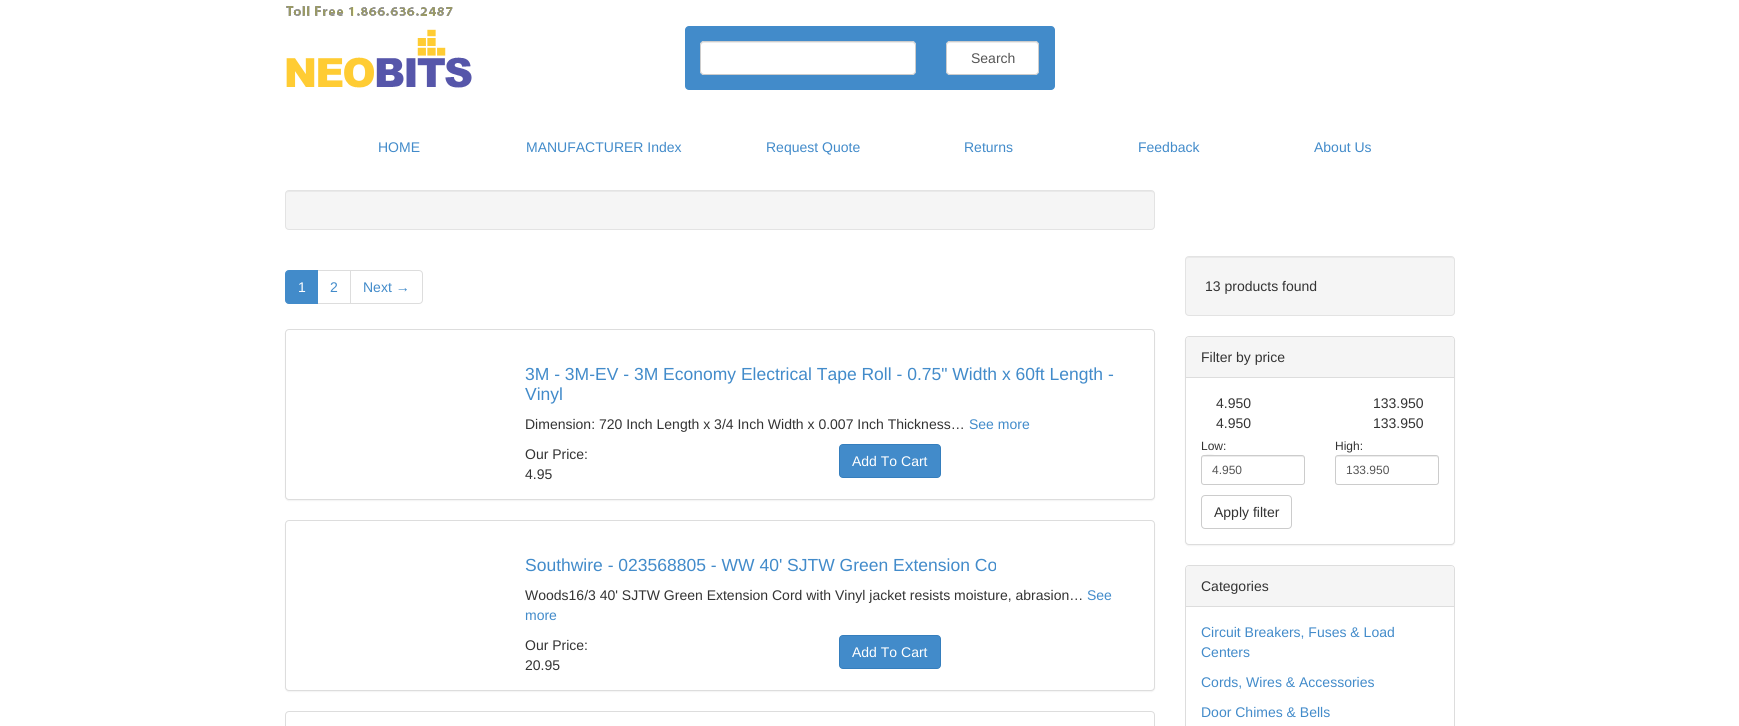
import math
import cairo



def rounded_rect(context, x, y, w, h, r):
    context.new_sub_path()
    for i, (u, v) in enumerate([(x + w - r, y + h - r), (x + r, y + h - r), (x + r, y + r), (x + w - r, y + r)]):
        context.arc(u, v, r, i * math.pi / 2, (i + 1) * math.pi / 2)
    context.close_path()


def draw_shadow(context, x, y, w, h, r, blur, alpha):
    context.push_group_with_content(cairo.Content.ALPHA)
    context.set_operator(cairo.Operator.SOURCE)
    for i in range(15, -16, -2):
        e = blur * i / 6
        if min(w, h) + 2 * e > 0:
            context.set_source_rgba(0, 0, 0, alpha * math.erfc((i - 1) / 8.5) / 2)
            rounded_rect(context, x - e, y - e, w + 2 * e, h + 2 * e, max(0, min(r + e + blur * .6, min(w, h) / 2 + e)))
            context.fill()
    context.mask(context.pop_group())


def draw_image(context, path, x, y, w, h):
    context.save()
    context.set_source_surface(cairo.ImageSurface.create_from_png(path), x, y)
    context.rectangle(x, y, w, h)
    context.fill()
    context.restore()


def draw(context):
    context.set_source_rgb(1, 1, 1)
    context.paint()
    draw_image(context, "images/1.png", 286, 6, 167, 10)
    draw_image(context, "images/2.png", 286, 29, 186, 59)
    context.set_source_rgb(66 / 255, 139 / 255, 202 / 255)
    rounded_rect(context, 685, 26, 370, 64, 4)
    context.fill()
    context.set_source_rgb(1, 1, 1)
    rounded_rect(context, 700, 41, 216, 34, 4)
    context.fill()
    context.set_source_rgb(236 / 255, 236 / 255, 236 / 255)
    context.new_path()
    context.move_to(704, 43)
    context.line_to(912, 43)
    context.curve_to(914, 43, 915, 44, 915, 46)
    context.line_to(915, 45)
    context.curve_to(915, 43, 914, 42, 912, 42)
    context.line_to(704, 42)
    context.curve_to(702, 42, 701, 43, 701, 45)
    context.line_to(701, 46)
    context.curve_to(701, 44, 702, 43, 704, 43)
    context.close_path()
    context.fill()
    rounded_rect(context, 700.5, 41.5, 215, 33, 3.5)
    context.set_source_rgb(204 / 255, 204 / 255, 204 / 255)
    context.set_line_width(1)
    context.stroke()
    context.set_source_rgb(1, 1, 1)
    rounded_rect(context, 946, 41, 93, 34, 4)
    context.fill()
    context.set_source_rgb(236 / 255, 236 / 255, 236 / 255)
    context.new_path()
    context.move_to(950, 43)
    context.line_to(1035, 43)
    context.curve_to(1037, 43, 1038, 44, 1038, 46)
    context.curve_to(1038, 38, 1024, 42, 1021, 42)
    context.line_to(964, 42)
    context.curve_to(961, 42, 947, 38, 947, 46)
    context.curve_to(947, 44, 948, 43, 950, 43)
    context.close_path()
    context.fill()
    rounded_rect(context, 946.5, 41.5, 92, 33, 3.5)
    context.set_source_rgb(204 / 255, 204 / 255, 204 / 255)
    context.stroke()
    context.set_source_rgb(245 / 255, 245 / 255, 245 / 255)
    rounded_rect(context, 285, 190, 870, 40, 4)
    context.fill()
    context.set_source_rgb(233 / 255, 233 / 255, 233 / 255)
    context.new_path()
    context.move_to(289, 192)
    context.line_to(1151, 192)
    context.curve_to(1153, 192, 1154, 193, 1154, 195)
    context.curve_to(1154, 193, 1153, 191, 1151, 191)
    context.line_to(289, 191)
    context.curve_to(287, 191, 286, 193, 286, 195)
    context.curve_to(286, 193, 287, 192, 289, 192)
    context.close_path()
    context.fill()
    rounded_rect(context, 285.5, 190.5, 869, 39, 3.5)
    context.set_source_rgb(227 / 255, 227 / 255, 227 / 255)
    context.stroke()
    context.rectangle(317.5, 270.5, 33, 33)
    context.set_source_rgb(221 / 255, 221 / 255, 221 / 255)
    context.stroke()
    context.set_source_rgb(66 / 255, 139 / 255, 202 / 255)
    context.new_path()
    context.move_to(289, 270.5)
    context.line_to(317.5, 270.5)
    context.line_to(317.5, 303.5)
    context.line_to(289, 303.5)
    context.curve_to(287, 303.5, 285.5, 302, 285.5, 300)
    context.line_to(285.5, 274)
    context.curve_to(285.5, 272, 287, 270.5, 289, 270.5)
    context.close_path()
    context.fill_preserve()
    context.stroke()
    context.set_source_rgb(1, 1, 1)
    context.new_path()
    context.move_to(350.5, 270.5)
    context.line_to(419, 270.5)
    context.curve_to(421, 270.5, 422.5, 272, 422.5, 274)
    context.line_to(422.5, 300)
    context.curve_to(422.5, 302, 421, 303.5, 419, 303.5)
    context.line_to(350.5, 303.5)
    context.close_path()
    context.fill_preserve()
    context.set_source_rgb(221 / 255, 221 / 255, 221 / 255)
    context.stroke()
    context.set_source_rgb(0, 0, 0)
    draw_shadow(context, 285, 330, 870, 171, 4, 0.5, 0.05)
    context.set_source_rgb(1, 1, 1)
    rounded_rect(context, 285.5, 329.5, 869, 170, 3.5)
    context.fill_preserve()
    context.set_source_rgb(221 / 255, 221 / 255, 221 / 255)
    context.stroke()
    context.set_source_rgb(66 / 255, 139 / 255, 202 / 255)
    rounded_rect(context, 839.5, 444.5, 101, 33, 3.5)
    context.fill_preserve()
    context.set_source_rgb(53 / 255, 126 / 255, 189 / 255)
    context.stroke()
    context.set_source_rgb(0, 0, 0)
    draw_shadow(context, 285, 521, 870, 171, 4, 0.5, 0.05)
    context.set_source_rgb(1, 1, 1)
    rounded_rect(context, 285.5, 520.5, 869, 170, 3.5)
    context.fill_preserve()
    context.set_source_rgb(221 / 255, 221 / 255, 221 / 255)
    context.stroke()
    context.set_source_rgb(66 / 255, 139 / 255, 202 / 255)
    rounded_rect(context, 839.5, 635.5, 101, 33, 3.5)
    context.fill_preserve()
    context.set_source_rgb(53 / 255, 126 / 255, 189 / 255)
    context.stroke()
    rounded_rect(context, 285.5, 711.5, 869, 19, 3.5)
    context.set_source_rgb(221 / 255, 221 / 255, 221 / 255)
    context.stroke()
    context.set_source_rgb(245 / 255, 245 / 255, 245 / 255)
    rounded_rect(context, 1185, 256, 270, 60, 4)
    context.fill()
    context.set_source_rgb(233 / 255, 233 / 255, 233 / 255)
    context.new_path()
    context.move_to(1189, 258)
    context.line_to(1451, 258)
    context.curve_to(1453, 258, 1454, 259, 1454, 261)
    context.curve_to(1454, 259, 1453, 257, 1451, 257)
    context.line_to(1189, 257)
    context.curve_to(1187, 257, 1186, 259, 1186, 261)
    context.curve_to(1186, 259, 1187, 258, 1189, 258)
    context.close_path()
    context.fill()
    rounded_rect(context, 1185.5, 256.5, 269, 59, 3.5)
    context.set_source_rgb(227 / 255, 227 / 255, 227 / 255)
    context.stroke()
    context.set_source_rgb(0, 0, 0)
    draw_shadow(context, 1185, 337, 270, 209, 4, 0.5, 0.05)
    context.set_source_rgb(1, 1, 1)
    rounded_rect(context, 1185.5, 336.5, 269, 208, 3.5)
    context.fill_preserve()
    context.set_source_rgb(221 / 255, 221 / 255, 221 / 255)
    context.stroke()
    context.set_source_rgb(245 / 255, 245 / 255, 245 / 255)
    context.new_path()
    context.move_to(1189, 337)
    context.line_to(1451, 337)
    context.curve_to(1452.5, 337, 1454, 338.5, 1454, 340)
    context.line_to(1454, 378)
    context.line_to(1186, 378)
    context.line_to(1186, 340)
    context.curve_to(1186, 338.5, 1187.5, 337, 1189, 337)
    context.close_path()
    context.fill()
    context.set_source_rgb(221 / 255, 221 / 255, 221 / 255)
    context.rectangle(1186, 377, 268, 1)
    context.fill()
    context.set_source_rgb(236 / 255, 236 / 255, 236 / 255)
    context.new_path()
    context.move_to(1204, 457)
    context.line_to(1302, 457)
    context.curve_to(1303, 457, 1304, 458, 1304, 459)
    context.curve_to(1304, 458, 1304, 456, 1302, 456)
    context.line_to(1220, 456)
    context.curve_to(1219, 456, 1202, 451, 1202, 459)
    context.curve_to(1202, 458, 1203, 457, 1204, 457)
    context.close_path()
    context.fill()
    rounded_rect(context, 1201.5, 455.5, 103, 29, 2.5)
    context.set_source_rgb(204 / 255, 204 / 255, 204 / 255)
    context.stroke()
    context.set_source_rgb(236 / 255, 236 / 255, 236 / 255)
    context.new_path()
    context.move_to(1338, 457)
    context.line_to(1436, 457)
    context.curve_to(1437, 457, 1438, 458, 1438, 459)
    context.curve_to(1438, 458, 1438, 456, 1436, 456)
    context.line_to(1354, 456)
    context.curve_to(1353, 456, 1336, 451, 1336, 459)
    context.curve_to(1336, 458, 1337, 457, 1338, 457)
    context.close_path()
    context.fill()
    rounded_rect(context, 1335.5, 455.5, 103, 29, 2.5)
    context.set_source_rgb(204 / 255, 204 / 255, 204 / 255)
    context.stroke()
    rounded_rect(context, 1201.5, 495.5, 90, 33, 3.5)
    context.stroke()
    rounded_rect(context, 1185.5, 565.5, 269, 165, 3.5)
    context.set_source_rgb(221 / 255, 221 / 255, 221 / 255)
    context.stroke()
    context.set_source_rgb(245 / 255, 245 / 255, 245 / 255)
    context.new_path()
    context.move_to(1189, 566)
    context.line_to(1451, 566)
    context.curve_to(1452.5, 566, 1454, 567.5, 1454, 569)
    context.line_to(1454, 607)
    context.line_to(1186, 607)
    context.line_to(1186, 569)
    context.curve_to(1186, 567.5, 1187.5, 566, 1189, 566)
    context.close_path()
    context.fill()
    context.set_source_rgb(221 / 255, 221 / 255, 221 / 255)
    context.rectangle(1186, 606, 268, 1)
    context.fill()
    context.select_font_face("Liberation Sans")
    context.set_font_size(14)
    context.set_source_rgb(85 / 255, 85 / 255, 85 / 255)
    context.move_to(971, 63)
    context.show_text("Search")
    context.set_source_rgb(66 / 255, 139 / 255, 202 / 255)
    context.move_to(378, 152)
    context.show_text("HOME")
    context.move_to(526, 152)
    context.show_text("MANUFACTURER Index")
    context.move_to(766, 152)
    context.show_text("Request Quote")
    context.move_to(964, 152)
    context.show_text("Returns")
    context.move_to(1138, 152)
    context.show_text("Feedback")
    context.move_to(1314, 152)
    context.show_text("About Us")
    context.set_source_rgb(1, 1, 1)
    context.move_to(298, 292)
    context.show_text("1")
    context.set_source_rgb(66 / 255, 139 / 255, 202 / 255)
    context.move_to(330, 292)
    context.show_text("2")
    context.move_to(363, 292)
    context.show_text("Next →")
    context.set_font_size(17.5)
    context.move_to(525, 380)
    context.show_text("3M - 3M-EV - 3M Economy Electrical Tape Roll - 0.75\" Width x 60ft Length -")
    context.move_to(525, 400)
    context.show_text("Vinyl")
    context.set_font_size(14)
    context.set_source_rgb(51 / 255, 51 / 255, 51 / 255)
    context.move_to(525, 429)
    context.show_text("Dimension: 720 Inch Length x 3/4 Inch Width x 0.007 Inch Thickness…")
    context.set_source_rgb(66 / 255, 139 / 255, 202 / 255)
    context.move_to(969, 429)
    context.show_text("See more")
    context.set_source_rgb(51 / 255, 51 / 255, 51 / 255)
    context.move_to(525, 459)
    context.show_text("Our Price:")
    context.move_to(525, 479)
    context.show_text("4.95")
    context.set_source_rgb(1, 1, 1)
    context.move_to(852, 466)
    context.show_text("Add To Cart")
    context.set_font_size(17.5)
    context.set_source_rgb(66 / 255, 139 / 255, 202 / 255)
    context.move_to(525, 571)
    context.show_text("Southwire - 023568805 - WW 40' SJTW Green Extension Co")
    context.set_font_size(14)
    context.set_source_rgb(51 / 255, 51 / 255, 51 / 255)
    context.move_to(525, 600)
    context.show_text("Woods16/3 40' SJTW Green Extension Cord with Vinyl jacket resists moisture, abrasion…")
    context.set_source_rgb(66 / 255, 139 / 255, 202 / 255)
    context.move_to(1087, 600)
    context.show_text("See")
    context.move_to(525, 620)
    context.show_text("more")
    context.set_source_rgb(51 / 255, 51 / 255, 51 / 255)
    context.move_to(525, 650)
    context.show_text("Our Price:")
    context.move_to(525, 670)
    context.show_text("20.95")
    context.set_source_rgb(1, 1, 1)
    context.move_to(852, 657)
    context.show_text("Add To Cart")
    context.set_source_rgb(51 / 255, 51 / 255, 51 / 255)
    context.move_to(1205, 291)
    context.show_text("13 products found")
    context.move_to(1201, 362)
    context.show_text("Filter by price")
    context.move_to(1216, 408)
    context.show_text("4.950")
    context.move_to(1373, 408)
    context.show_text("133.950")
    context.move_to(1216, 428)
    context.show_text("4.950")
    context.move_to(1373, 428)
    context.show_text("133.950")
    context.set_font_size(12)
    context.move_to(1201, 450)
    context.show_text("Low:")
    context.move_to(1335, 450)
    context.show_text("High:")
    context.set_source_rgb(85 / 255, 85 / 255, 85 / 255)
    context.move_to(1212, 474)
    context.show_text("4.950")
    context.move_to(1346, 474)
    context.show_text("133.950")
    context.set_font_size(14)
    context.set_source_rgb(51 / 255, 51 / 255, 51 / 255)
    context.move_to(1214, 517)
    context.show_text("Apply filter")
    context.move_to(1201, 591)
    context.show_text("Categories")
    context.set_source_rgb(66 / 255, 139 / 255, 202 / 255)
    context.move_to(1201, 637)
    context.show_text("Circuit Breakers, Fuses & Load")
    context.move_to(1201, 657)
    context.show_text("Centers")
    context.move_to(1201, 687)
    context.show_text("Cords, Wires & Accessories")
    context.move_to(1201, 717)
    context.show_text("Door Chimes & Bells")


surface = cairo.ImageSurface(cairo.Format.RGB24, 1739, 726)
context = cairo.Context(surface)
options = cairo.FontOptions()
options.set_hint_metrics(cairo.HintMetrics.OFF)
options.set_hint_style(cairo.HintStyle.NONE)
context.set_font_options(options)
context.set_miter_limit(4)
draw(context)
surface.write_to_png("out.png")
